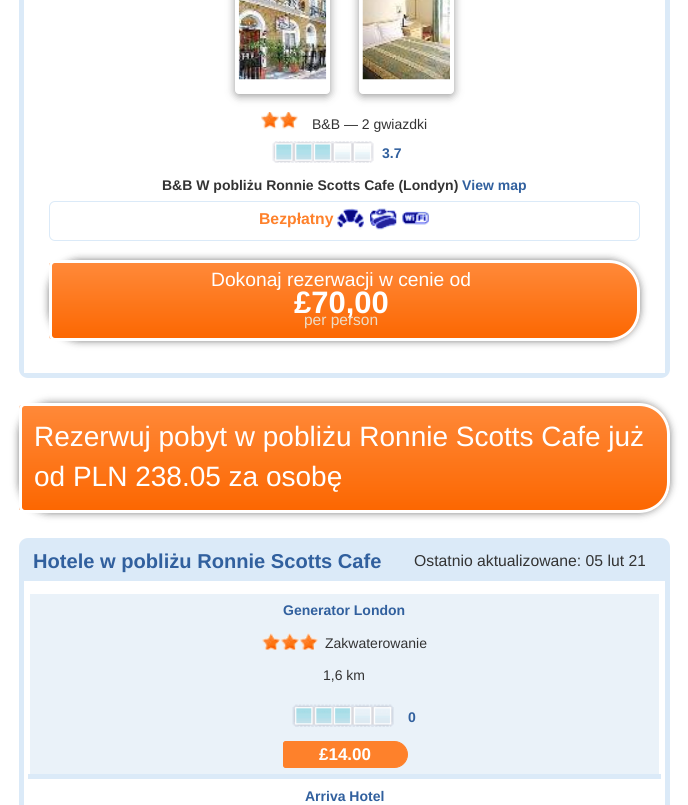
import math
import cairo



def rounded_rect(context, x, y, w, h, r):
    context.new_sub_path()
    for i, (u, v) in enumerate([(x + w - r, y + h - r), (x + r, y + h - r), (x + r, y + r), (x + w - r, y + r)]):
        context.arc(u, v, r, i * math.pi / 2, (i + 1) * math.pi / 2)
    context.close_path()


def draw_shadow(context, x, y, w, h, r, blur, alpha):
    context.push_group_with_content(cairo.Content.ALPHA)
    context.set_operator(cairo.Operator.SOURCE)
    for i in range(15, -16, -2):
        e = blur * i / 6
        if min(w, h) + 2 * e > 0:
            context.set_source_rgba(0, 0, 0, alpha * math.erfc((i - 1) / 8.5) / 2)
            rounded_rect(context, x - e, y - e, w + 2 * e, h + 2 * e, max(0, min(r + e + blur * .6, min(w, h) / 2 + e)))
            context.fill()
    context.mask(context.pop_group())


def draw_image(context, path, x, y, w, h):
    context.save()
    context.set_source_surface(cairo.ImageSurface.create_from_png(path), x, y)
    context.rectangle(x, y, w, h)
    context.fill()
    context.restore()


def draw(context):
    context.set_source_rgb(1, 1, 1)
    context.paint()
    rounded_rect(context, 21.5, -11.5, 646, 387, 6.5)
    context.set_source_rgb(219 / 255, 234 / 255, 248 / 255)
    context.set_line_width(5)
    context.stroke()
    context.set_source_rgb(1, 1, 1)
    context.rectangle(24, 370, 641, 3)
    context.fill()
    context.set_source_rgb(0, 0, 0)
    draw_shadow(context, 235, -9, 95, 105, 4, 4.5, 0.4)
    context.set_source_rgb(1, 1, 1)
    context.new_path()
    context.move_to(235.5, -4.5)
    context.line_to(329.5, -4.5)
    context.line_to(329.5, 90)
    context.curve_to(329.5, 92, 328, 93.5, 326, 93.5)
    context.line_to(239, 93.5)
    context.curve_to(237, 93.5, 235.5, 92, 235.5, 90)
    context.close_path()
    context.fill_preserve()
    context.set_line_width(1)
    context.stroke()
    context.set_source_rgb(0, 0, 0)
    draw_shadow(context, 359, -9, 95, 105, 4, 4.5, 0.4)
    context.set_source_rgb(1, 1, 1)
    context.new_path()
    context.move_to(359.5, -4.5)
    context.line_to(453.5, -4.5)
    context.line_to(453.5, 90)
    context.curve_to(453.5, 92, 452, 93.5, 450, 93.5)
    context.line_to(363, 93.5)
    context.curve_to(361, 93.5, 359.5, 92, 359.5, 90)
    context.close_path()
    context.fill_preserve()
    context.stroke()
    draw_image(context, "images/1.png", 238, 0, 89, 80)
    draw_image(context, "images/2.png", 362, 0, 88, 80)
    draw_image(context, "images/3.png", 261, 112, 37, 17)
    context.set_source_rgb(163 / 255, 220 / 255, 231 / 255)
    context.rectangle(276, 144, 55, 16)
    context.fill()
    draw_image(context, "images/4.png", 272, 141, 102, 22)
    rounded_rect(context, 49.5, 201.5, 590, 39, 5.5)
    context.set_source_rgb(219 / 255, 234 / 255, 248 / 255)
    context.stroke()
    draw_image(context, "images/5.png", 337, 208, 27, 22)
    draw_image(context, "images/6.png", 370, 208, 27, 22)
    draw_image(context, "images/7.png", 402, 211, 27, 14)
    context.set_source_rgb(0, 0, 0)
    draw_shadow(context, 49, 260, 591, 81, 31, 4, 0.5)
    context.save()
    context.new_path()
    context.move_to(55, 260)
    context.line_to(609, 260)
    context.curve_to(626, 260, 640, 274, 640, 291)
    context.line_to(640, 310)
    context.curve_to(640, 327, 626, 341, 609, 341)
    context.line_to(55, 341)
    context.curve_to(51.5, 341, 49, 338.5, 49, 335)
    context.line_to(49, 266)
    context.curve_to(49, 262.5, 51.5, 260, 55, 260)
    context.close_path()
    context.clip()
    gradient = cairo.LinearGradient(344, 339, 344, 263)
    gradient.add_color_stop_rgba(0, 252 / 255, 103 / 255, 1 / 255, 1)
    gradient.add_color_stop_rgba(1, 1, 137 / 255, 57 / 255, 1)
    context.set_source(gradient)
    context.rectangle(49, 263, 591, 76)
    context.fill()
    context.restore()
    context.new_path()
    context.move_to(55, 261.5)
    context.line_to(609, 261.5)
    context.curve_to(625.5, 261.5, 638.5, 274.5, 638.5, 291)
    context.line_to(638.5, 310)
    context.curve_to(638.5, 326.5, 625.5, 339.5, 609, 339.5)
    context.line_to(55, 339.5)
    context.curve_to(52.5, 339.5, 50.5, 337.5, 50.5, 335)
    context.line_to(50.5, 266)
    context.curve_to(50.5, 263.5, 52.5, 261.5, 55, 261.5)
    context.close_path()
    context.set_source_rgb(1, 1, 1)
    context.set_line_width(3)
    context.stroke()
    context.set_source_rgb(0, 0, 0)
    draw_shadow(context, 19, 403, 651, 110, 31, 4, 0.5)
    context.save()
    context.new_path()
    context.move_to(25, 403)
    context.line_to(639, 403)
    context.curve_to(656, 403, 670, 417, 670, 434)
    context.line_to(670, 482)
    context.curve_to(670, 499, 656, 513, 639, 513)
    context.line_to(25, 513)
    context.curve_to(21.5, 513, 19, 510.5, 19, 507)
    context.line_to(19, 409)
    context.curve_to(19, 405.5, 21.5, 403, 25, 403)
    context.close_path()
    context.clip()
    gradient = cairo.LinearGradient(344, 510, 344, 405)
    gradient.add_color_stop_rgba(0, 252 / 255, 103 / 255, 1 / 255, 1)
    gradient.add_color_stop_rgba(1, 1, 137 / 255, 57 / 255, 1)
    context.set_source(gradient)
    context.rectangle(19, 405, 651, 105)
    context.fill()
    context.restore()
    context.new_path()
    context.move_to(25, 404.5)
    context.line_to(639, 404.5)
    context.curve_to(655.5, 404.5, 668.5, 417.5, 668.5, 434)
    context.line_to(668.5, 482)
    context.curve_to(668.5, 498.5, 655.5, 511.5, 639, 511.5)
    context.line_to(25, 511.5)
    context.curve_to(22.5, 511.5, 20.5, 509.5, 20.5, 507)
    context.line_to(20.5, 409)
    context.curve_to(20.5, 406.5, 22.5, 404.5, 25, 404.5)
    context.close_path()
    context.set_source_rgb(1, 1, 1)
    context.stroke()
    rounded_rect(context, 21.5, 540.5, 646, 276, 6.5)
    context.set_source_rgb(219 / 255, 234 / 255, 248 / 255)
    context.set_line_width(5)
    context.stroke()
    context.rectangle(24, 543, 641, 38)
    context.fill()
    context.set_source_rgb(234 / 255, 242 / 255, 249 / 255)
    context.rectangle(30, 594, 629, 180)
    context.fill()
    context.set_source_rgb(219 / 255, 234 / 255, 248 / 255)
    context.rectangle(28, 774, 633, 5)
    context.fill()
    draw_image(context, "images/8.png", 262, 633, 56, 17)
    context.set_source_rgb(163 / 255, 220 / 255, 231 / 255)
    context.rectangle(296, 708, 55, 16)
    context.fill()
    draw_image(context, "images/9.png", 292, 704, 102, 23)
    context.set_source_rgb(254 / 255, 129 / 255, 43 / 255)
    context.new_path()
    context.move_to(285.5, 741.5)
    context.line_to(394.5, 741.5)
    context.curve_to(401.5, 741.5, 407.5, 747.5, 407.5, 754.5)
    context.curve_to(407.5, 761.5, 401.5, 767.5, 394.5, 767.5)
    context.line_to(285.5, 767.5)
    context.curve_to(284.5, 767.5, 283.5, 766.5, 283.5, 765.5)
    context.line_to(283.5, 743.5)
    context.curve_to(283.5, 742.5, 284.5, 741.5, 285.5, 741.5)
    context.close_path()
    context.fill_preserve()
    context.set_line_width(1)
    context.stroke()
    context.select_font_face("Liberation Sans")
    context.set_font_size(14)
    context.set_source_rgb(51 / 255, 51 / 255, 51 / 255)
    context.move_to(312, 129)
    context.show_text("B&B — 2 gwiazdki")
    context.select_font_face("Liberation Sans", cairo.FontSlant.NORMAL, cairo.FontWeight.BOLD)
    context.set_source_rgb(49 / 255, 96 / 255, 158 / 255)
    context.move_to(382, 158)
    context.show_text("3.7")
    context.set_source_rgb(51 / 255, 51 / 255, 51 / 255)
    context.move_to(162, 190)
    context.show_text("B&B W pobliżu Ronnie Scotts Cafe (Londyn)")
    context.set_source_rgb(49 / 255, 96 / 255, 158 / 255)
    context.move_to(462, 190)
    context.show_text("View map")
    context.set_font_size(15.75)
    context.set_source_rgb(254 / 255, 129 / 255, 43 / 255)
    context.move_to(259, 224)
    context.show_text("Bezpłatny")
    context.select_font_face("Liberation Sans")
    context.set_font_size(19.25)
    context.set_source_rgb(1, 1, 1)
    context.move_to(211, 286)
    context.show_text("Dokonaj rezerwacji w cenie od")
    context.select_font_face("Liberation Sans", cairo.FontSlant.NORMAL, cairo.FontWeight.BOLD)
    context.set_font_size(31)
    context.move_to(294, 313)
    context.show_text("£70,00")
    context.select_font_face("Liberation Sans")
    context.set_font_size(15.5)
    context.set_source_rgb(237 / 255, 220 / 255, 197 / 255)
    context.move_to(304, 325)
    context.show_text("per person")
    context.set_font_size(28)
    context.set_source_rgb(1, 1, 1)
    context.move_to(34, 446)
    context.show_text("Rezerwuj pobyt w pobliżu Ronnie Scotts Cafe już")
    context.move_to(34, 486)
    context.show_text("od PLN 238.05 za osobę")
    context.select_font_face("Liberation Sans", cairo.FontSlant.NORMAL, cairo.FontWeight.BOLD)
    context.set_font_size(20.1)
    context.set_source_rgb(49 / 255, 96 / 255, 158 / 255)
    context.move_to(33, 568)
    context.show_text("Hotele w pobliżu Ronnie Scotts Cafe")
    context.select_font_face("Liberation Sans")
    context.set_font_size(15.75)
    context.set_source_rgb(51 / 255, 51 / 255, 51 / 255)
    context.move_to(414, 566)
    context.show_text("Ostatnio aktualizowane: 05 lut 21")
    context.select_font_face("Liberation Sans", cairo.FontSlant.NORMAL, cairo.FontWeight.BOLD)
    context.set_font_size(14)
    context.set_source_rgb(49 / 255, 96 / 255, 158 / 255)
    context.move_to(283, 615)
    context.show_text("Generator London")
    context.select_font_face("Liberation Sans")
    context.set_source_rgb(51 / 255, 51 / 255, 51 / 255)
    context.move_to(325, 648)
    context.show_text("Zakwaterowanie")
    context.move_to(323, 680)
    context.show_text("1,6 km")
    context.select_font_face("Liberation Sans", cairo.FontSlant.NORMAL, cairo.FontWeight.BOLD)
    context.set_source_rgb(49 / 255, 96 / 255, 158 / 255)
    context.move_to(408, 722)
    context.show_text("0")
    context.set_font_size(17)
    context.set_source_rgb(1, 1, 1)
    context.move_to(319, 760)
    context.show_text("£14.00")
    context.set_font_size(14)
    context.set_source_rgb(49 / 255, 96 / 255, 158 / 255)
    context.move_to(305, 801)
    context.show_text("Arriva Hotel")


surface = cairo.ImageSurface(cairo.Format.RGB24, 688, 805)
context = cairo.Context(surface)
options = cairo.FontOptions()
options.set_hint_metrics(cairo.HintMetrics.OFF)
options.set_hint_style(cairo.HintStyle.NONE)
context.set_font_options(options)
context.set_miter_limit(4)
draw(context)
surface.write_to_png("out.png")
